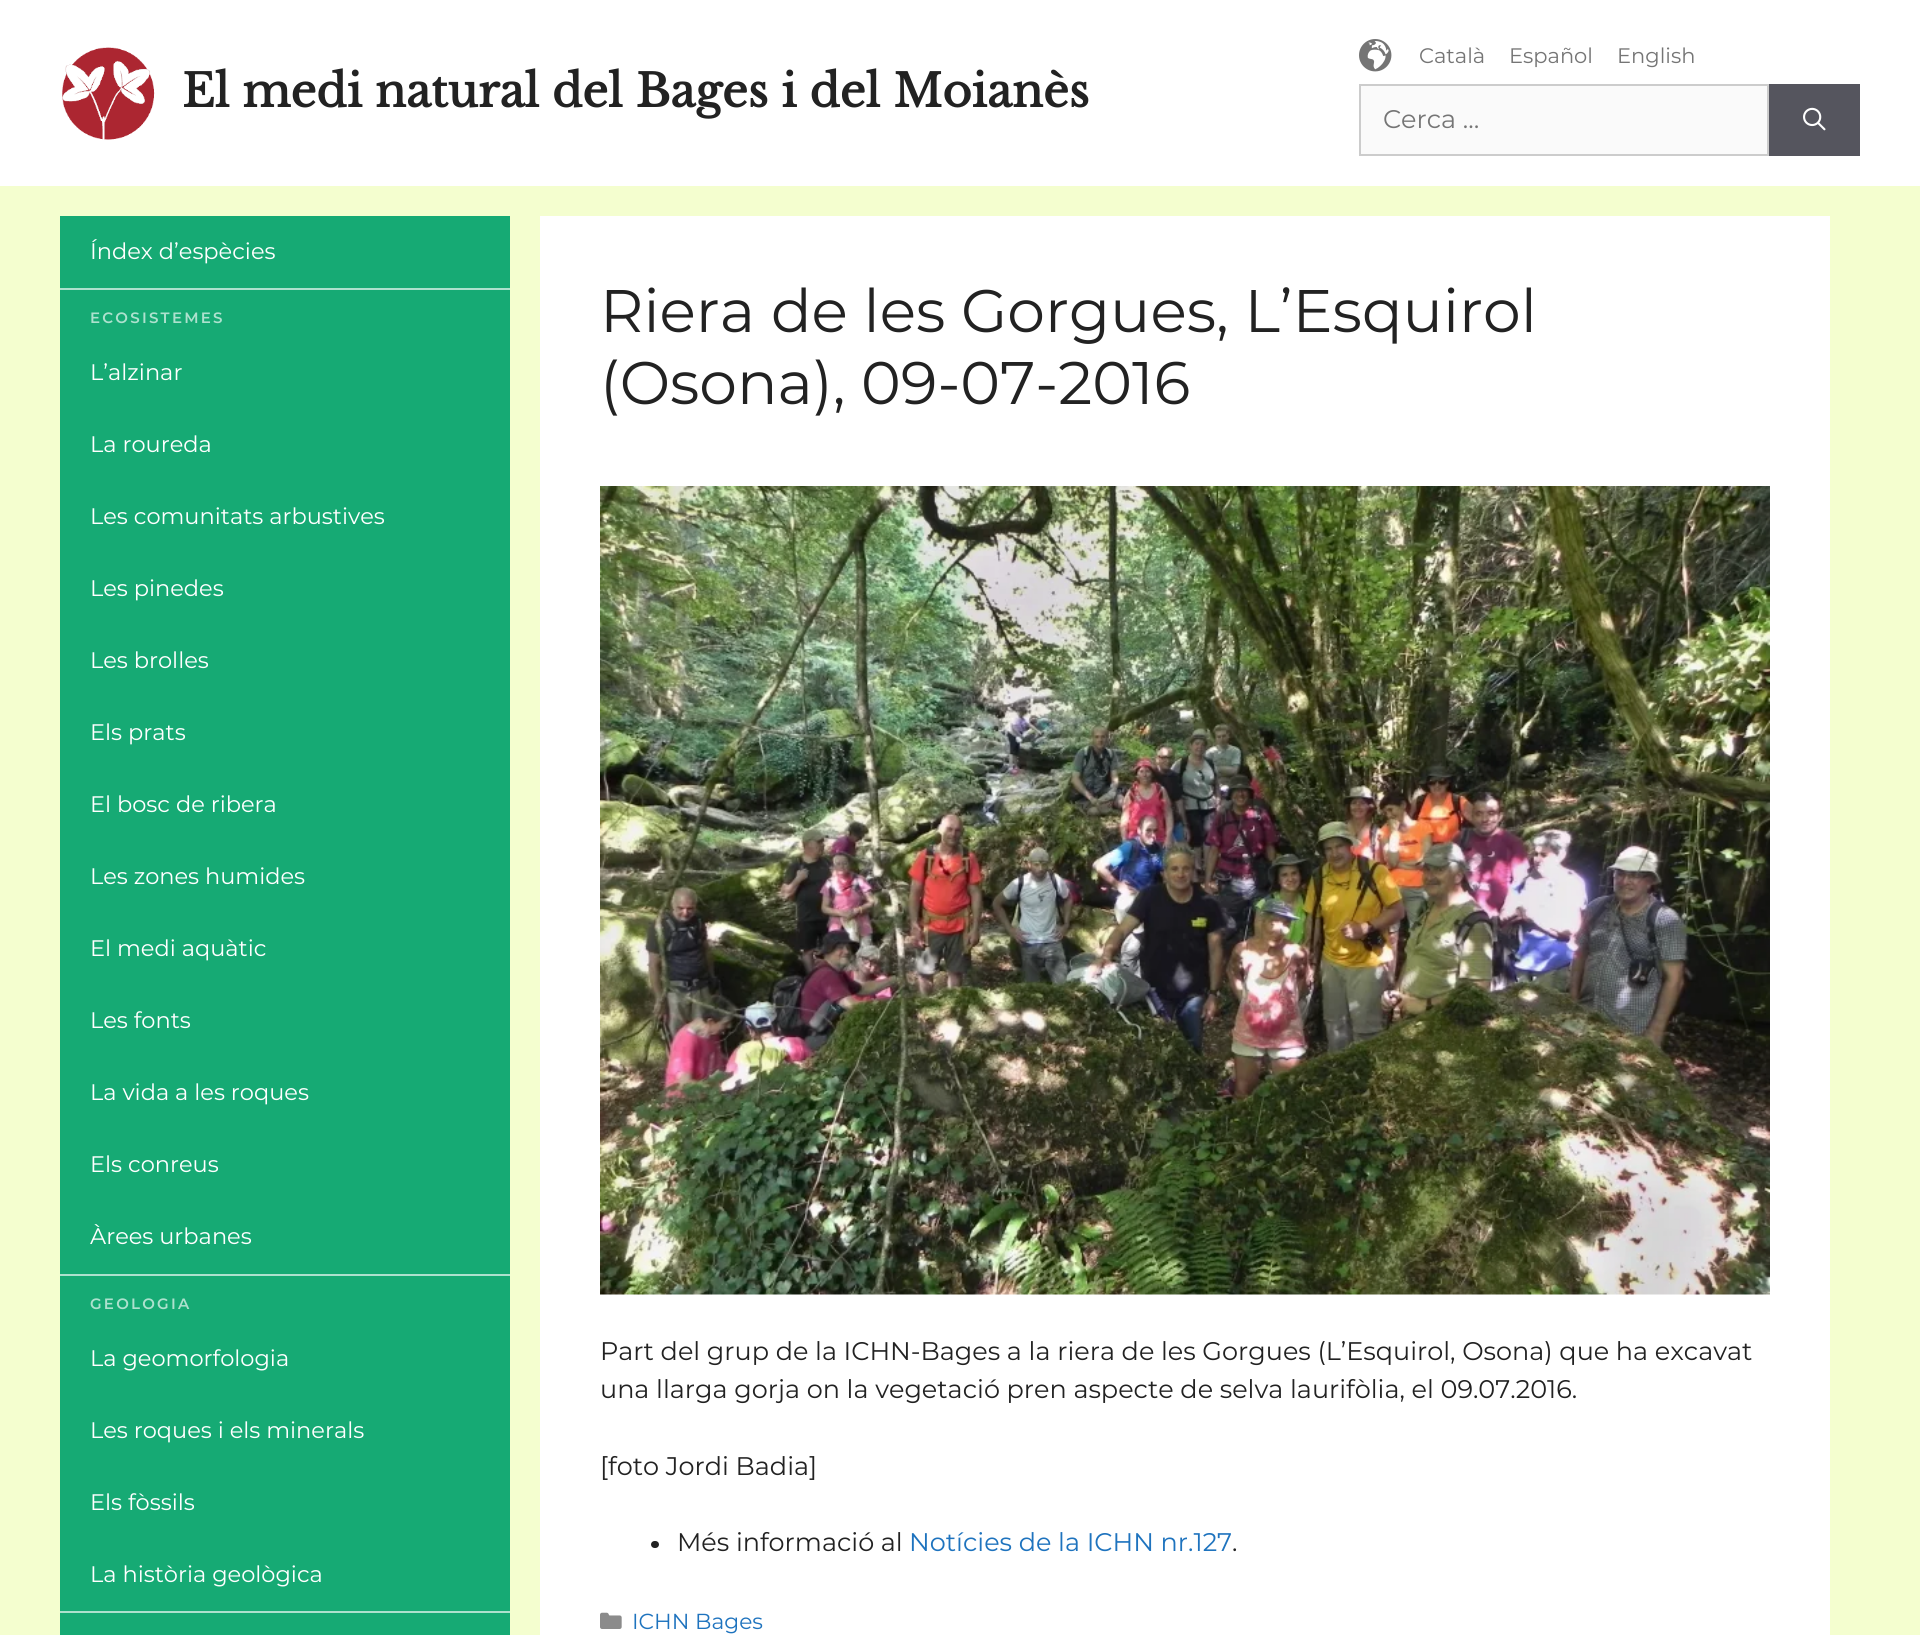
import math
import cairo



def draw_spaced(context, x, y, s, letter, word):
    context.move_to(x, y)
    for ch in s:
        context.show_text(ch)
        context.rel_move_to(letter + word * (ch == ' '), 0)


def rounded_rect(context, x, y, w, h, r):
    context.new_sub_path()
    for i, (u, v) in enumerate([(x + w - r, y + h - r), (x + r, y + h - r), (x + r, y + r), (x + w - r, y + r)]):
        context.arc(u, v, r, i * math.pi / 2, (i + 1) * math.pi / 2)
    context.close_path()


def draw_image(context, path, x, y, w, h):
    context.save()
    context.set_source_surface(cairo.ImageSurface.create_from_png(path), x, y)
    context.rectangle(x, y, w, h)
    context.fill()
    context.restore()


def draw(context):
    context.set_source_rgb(244 / 255, 254 / 255, 207 / 255)
    context.paint()
    context.set_source_rgb(1, 1, 1)
    context.rectangle(0, 0, 1920, 186)
    context.fill()
    draw_image(context, "images/1.png", 62, 47, 93, 93)
    draw_image(context, "images/2.png", 1359, 39, 33, 33)
    context.set_source_rgb(250 / 255, 250 / 255, 250 / 255)
    context.rectangle(1360, 85, 408, 70)
    context.fill_preserve()
    context.set_source_rgb(204 / 255, 204 / 255, 204 / 255)
    context.stroke()
    context.set_source_rgb(85 / 255, 85 / 255, 94 / 255)
    context.rectangle(1769, 84, 91, 72)
    context.fill()
    draw_image(context, "images/3.png", 1803, 107, 23, 24)
    context.set_source_rgb(22 / 255, 170 / 255, 116 / 255)
    context.rectangle(60, 216, 450, 1419)
    context.fill()
    context.set_source_rgb(173 / 255, 225 / 255, 206 / 255)
    context.rectangle(60, 288, 450, 2)
    context.fill()
    context.rectangle(60, 1274, 450, 2)
    context.fill()
    context.rectangle(60, 1611, 450, 2)
    context.fill()
    context.set_source_rgb(1, 1, 1)
    context.rectangle(540, 216, 1290, 1419)
    context.fill()
    draw_image(context, "images/4.png", 600, 486, 1170, 809)
    context.set_source_rgb(34 / 255, 34 / 255, 34 / 255)
    rounded_rect(context, 651, 1541, 8, 7, 3.5)
    context.fill()
    draw_image(context, "images/5.png", 600, 1612, 22, 17)
    context.select_font_face("Libre Baskerville", cairo.FontSlant.NORMAL, cairo.FontWeight.BOLD)
    context.set_font_size(45)
    context.move_to(182, 107)
    context.show_text("El medi natural del Bages i del Moianès")
    context.select_font_face("Montserrat")
    context.set_font_size(21)
    context.set_source_rgb(117 / 255, 117 / 255, 117 / 255)
    context.move_to(1419, 63)
    context.show_text("Català")
    context.move_to(1509, 63)
    context.show_text("Español")
    context.move_to(1617, 63)
    context.show_text("English")
    context.set_font_size(25.5)
    context.move_to(1383, 128)
    context.show_text("Cerca …")
    context.set_font_size(22.5)
    context.set_source_rgb(1, 1, 1)
    context.move_to(90, 259)
    context.show_text("Índex d’espècies")
    context.select_font_face("Montserrat SemiBold")
    context.set_font_size(15)
    context.set_source_rgb(173 / 255, 225 / 255, 206 / 255)
    draw_spaced(context, 90, 323, "ECOSISTEMES", 2.25, 0)
    context.select_font_face("Montserrat")
    context.set_font_size(22.5)
    context.set_source_rgb(1, 1, 1)
    context.move_to(90, 380)
    context.show_text("L’alzinar")
    context.move_to(90, 452)
    context.show_text("La roureda")
    context.move_to(90, 524)
    context.show_text("Les comunitats arbustives")
    context.move_to(90, 596)
    context.show_text("Les pinedes")
    context.move_to(90, 668)
    context.show_text("Les brolles")
    context.move_to(90, 740)
    context.show_text("Els prats")
    context.move_to(90, 812)
    context.show_text("El bosc de ribera")
    context.move_to(90, 884)
    context.show_text("Les zones humides")
    context.move_to(90, 956)
    context.show_text("El medi aquàtic")
    context.move_to(90, 1028)
    context.show_text("Les fonts")
    context.move_to(90, 1100)
    context.show_text("La vida a les roques")
    context.move_to(90, 1172)
    context.show_text("Els conreus")
    context.move_to(90, 1244)
    context.show_text("Àrees urbanes")
    context.select_font_face("Montserrat SemiBold")
    context.set_font_size(15)
    context.set_source_rgb(173 / 255, 225 / 255, 206 / 255)
    draw_spaced(context, 90, 1309, "GEOLOGIA", 2.25, 0)
    context.select_font_face("Montserrat")
    context.set_font_size(22.5)
    context.set_source_rgb(1, 1, 1)
    context.move_to(90, 1366)
    context.show_text("La geomorfologia")
    context.move_to(90, 1438)
    context.show_text("Les roques i els minerals")
    context.move_to(90, 1510)
    context.show_text("Els fòssils")
    context.move_to(90, 1582)
    context.show_text("La història geològica")
    context.set_font_size(60)
    context.set_source_rgb(34 / 255, 34 / 255, 34 / 255)
    context.move_to(600, 332)
    context.show_text("Riera de les Gorgues, L’Esquirol")
    context.move_to(600, 404)
    context.show_text("(Osona), 09-07-2016")
    context.set_font_size(25.5)
    context.move_to(600, 1360)
    context.show_text("Part del grup de la ICHN-Bages a la riera de les Gorgues (L’Esquirol, Osona) que ha excavat")
    context.move_to(600, 1398)
    context.show_text("una llarga gorja on la vegetació pren aspecte de selva laurifòlia, el 09.07.2016.")
    context.move_to(600, 1475)
    context.show_text("[foto Jordi Badia]")
    context.move_to(677, 1551)
    context.show_text("Més informació al")
    context.set_source_rgb(30 / 255, 115 / 255, 190 / 255)
    context.move_to(909, 1551)
    context.show_text("Notícies de la ICHN nr.127")
    context.set_source_rgb(34 / 255, 34 / 255, 34 / 255)
    context.move_to(1232, 1551)
    context.show_text(".")
    context.set_font_size(21.75)
    context.set_source_rgb(30 / 255, 115 / 255, 190 / 255)
    context.move_to(632, 1629)
    context.show_text("ICHN Bages")


surface = cairo.ImageSurface(cairo.Format.RGB24, 1920, 1635)
context = cairo.Context(surface)
options = cairo.FontOptions()
options.set_hint_metrics(cairo.HintMetrics.OFF)
options.set_hint_style(cairo.HintStyle.NONE)
context.set_font_options(options)
context.set_miter_limit(4)
draw(context)
surface.write_to_png("out.png")
